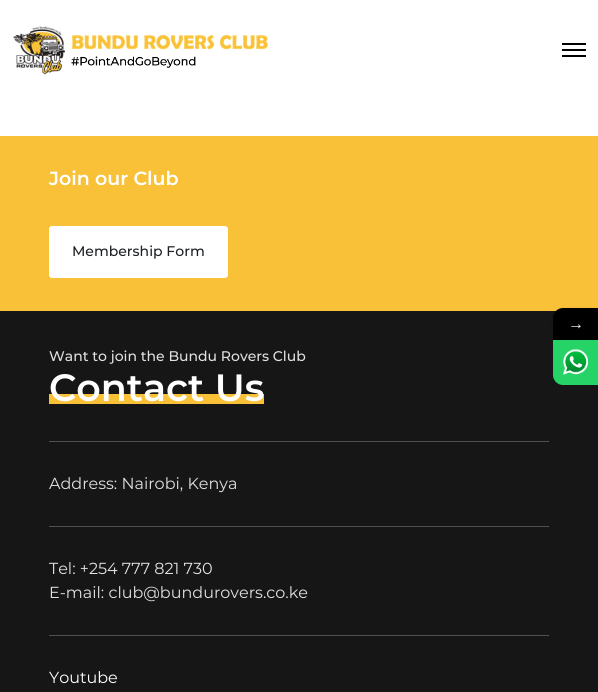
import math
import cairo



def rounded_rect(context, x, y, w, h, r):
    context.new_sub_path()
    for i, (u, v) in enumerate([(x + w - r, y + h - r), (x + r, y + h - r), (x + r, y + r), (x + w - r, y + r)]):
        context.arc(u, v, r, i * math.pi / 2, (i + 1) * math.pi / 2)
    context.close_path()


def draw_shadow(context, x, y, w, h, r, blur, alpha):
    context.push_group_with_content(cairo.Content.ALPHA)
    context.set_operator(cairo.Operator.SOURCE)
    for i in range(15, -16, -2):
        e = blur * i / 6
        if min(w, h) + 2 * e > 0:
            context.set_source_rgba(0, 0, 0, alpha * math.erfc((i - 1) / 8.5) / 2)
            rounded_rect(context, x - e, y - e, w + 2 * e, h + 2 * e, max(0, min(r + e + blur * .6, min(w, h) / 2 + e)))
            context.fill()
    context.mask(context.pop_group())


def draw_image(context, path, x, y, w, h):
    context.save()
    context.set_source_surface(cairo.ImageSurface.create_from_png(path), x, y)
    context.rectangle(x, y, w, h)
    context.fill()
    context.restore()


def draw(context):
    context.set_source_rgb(1, 1, 1)
    context.paint()
    draw_image(context, "images/1.png", 13, 26, 255, 49)
    draw_image(context, "images/2.png", 562, 43, 24, 14)
    context.set_source_rgb(248 / 255, 193 / 255, 56 / 255)
    context.rectangle(0, 136, 598, 175)
    context.fill()
    context.set_source_rgb(1, 1, 1)
    rounded_rect(context, 50, 227, 177, 50, 2)
    context.fill_preserve()
    context.stroke()
    context.set_source_rgb(22 / 255, 22 / 255, 22 / 255)
    context.rectangle(0, 311, 598, 381)
    context.fill()
    context.set_source_rgb(248 / 255, 193 / 255, 56 / 255)
    context.rectangle(49, 394, 215, 10)
    context.fill()
    context.set_source_rgb(80 / 255, 80 / 255, 80 / 255)
    context.rectangle(49, 441, 500, 1)
    context.fill()
    context.rectangle(49, 526, 500, 1)
    context.fill()
    context.rectangle(49, 635, 500, 1)
    context.fill()
    context.set_source_rgb(0, 0, 0)
    draw_shadow(context, 553, 311, 45, 32, 10, 3, 0.16)
    context.set_source_rgb(0, 0, 0)
    context.new_path()
    context.move_to(563, 308)
    context.line_to(598, 308)
    context.line_to(598, 340)
    context.line_to(553, 340)
    context.line_to(553, 318)
    context.curve_to(553, 312.5, 557.5, 308, 563, 308)
    context.close_path()
    context.fill()
    context.set_source_rgb(38 / 255, 211 / 255, 103 / 255)
    context.new_path()
    context.move_to(553, 340)
    context.line_to(598, 340)
    context.line_to(598, 385)
    context.line_to(563, 385)
    context.curve_to(557.5, 385, 553, 380.5, 553, 375)
    context.close_path()
    context.fill()
    draw_image(context, "images/3.png", 563, 349, 25, 26)
    context.select_font_face("Montserrat SemiBold")
    context.set_font_size(19)
    context.set_source_rgb(1, 1, 1)
    context.move_to(49, 185)
    context.show_text("Join our Club")
    context.select_font_face("Montserrat Medium")
    context.set_font_size(14)
    context.set_source_rgb(29 / 255, 32 / 255, 36 / 255)
    context.move_to(72, 256)
    context.show_text("Membership Form")
    context.set_source_rgb(224 / 255, 224 / 255, 224 / 255)
    context.move_to(49, 361)
    context.show_text("Want to join the Bundu Rovers Club")
    context.select_font_face("Montserrat SemiBold")
    context.set_font_size(38)
    context.set_source_rgb(1, 1, 1)
    context.move_to(49, 401)
    context.show_text("Contact Us")
    context.select_font_face("Montserrat")
    context.set_font_size(16)
    context.set_source_rgb(224 / 255, 224 / 255, 224 / 255)
    context.move_to(49, 489)
    context.show_text("Address: Nairobi, Kenya")
    context.move_to(49, 574)
    context.show_text("Tel: +254 777 821 730")
    context.move_to(49, 598)
    context.show_text("E-mail: club@bundurovers.co.ke")
    context.set_source_rgb(1, 1, 1)
    context.move_to(49, 683)
    context.show_text("Youtube")
    context.select_font_face("Liberation Serif")
    context.move_to(568, 329)
    context.show_text("→")


surface = cairo.ImageSurface(cairo.Format.RGB24, 598, 692)
context = cairo.Context(surface)
options = cairo.FontOptions()
options.set_hint_metrics(cairo.HintMetrics.OFF)
options.set_hint_style(cairo.HintStyle.NONE)
context.set_font_options(options)
context.set_miter_limit(4)
draw(context)
surface.write_to_png("out.png")
